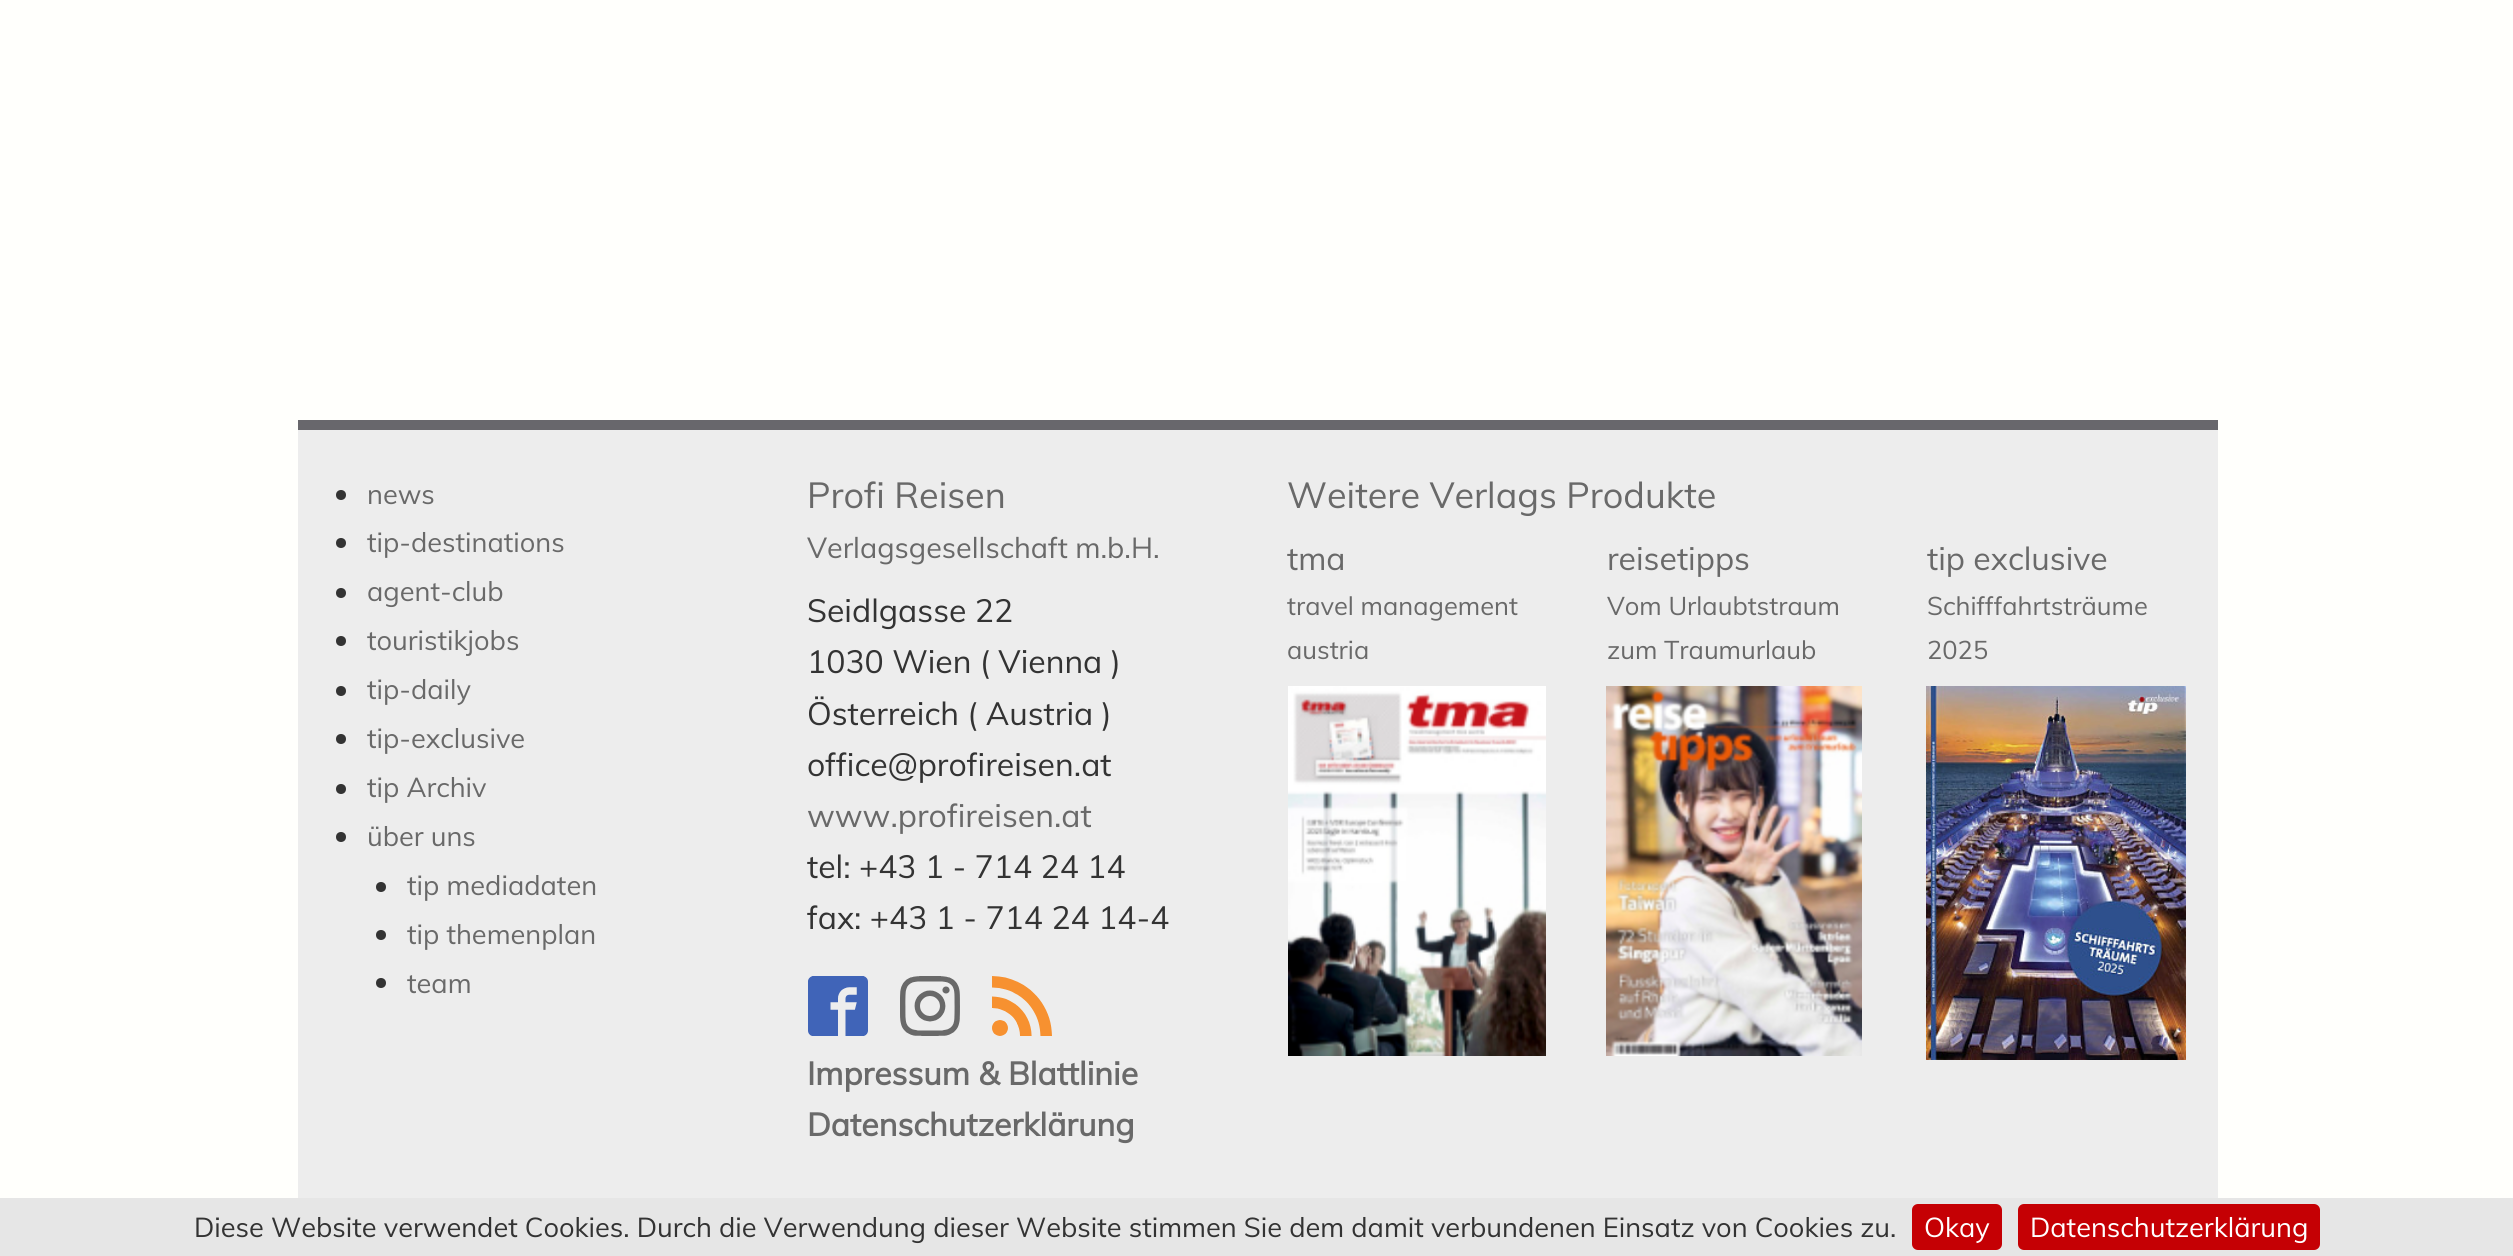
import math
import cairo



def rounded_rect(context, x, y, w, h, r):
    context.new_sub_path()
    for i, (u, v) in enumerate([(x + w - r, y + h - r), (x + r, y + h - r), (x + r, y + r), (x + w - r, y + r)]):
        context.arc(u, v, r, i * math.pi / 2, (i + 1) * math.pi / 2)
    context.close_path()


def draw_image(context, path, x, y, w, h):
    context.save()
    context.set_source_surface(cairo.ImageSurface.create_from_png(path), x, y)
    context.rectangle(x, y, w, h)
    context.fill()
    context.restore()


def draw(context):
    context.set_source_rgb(1, 1, 252 / 255)
    context.paint()
    context.set_source_rgb(237 / 255, 237 / 255, 237 / 255)
    context.rectangle(298, 430, 1920, 768)
    context.fill()
    context.set_source_rgb(104 / 255, 103 / 255, 108 / 255)
    context.rectangle(298, 420, 1920, 10)
    context.fill()
    context.set_source_rgb(51 / 255, 51 / 255, 51 / 255)
    context.arc(341, 495, 5, 0, 2 * math.pi)
    context.fill()
    context.arc(341, 543, 5, 0, 2 * math.pi)
    context.fill()
    context.arc(341, 593, 5, 0, 2 * math.pi)
    context.fill()
    context.arc(341, 641, 5, 0, 2 * math.pi)
    context.fill()
    context.arc(341, 691, 5, 0, 2 * math.pi)
    context.fill()
    context.arc(341, 739, 5, 0, 2 * math.pi)
    context.fill()
    context.arc(341, 789, 5, 0, 2 * math.pi)
    context.fill()
    context.arc(341, 837, 5, 0, 2 * math.pi)
    context.fill()
    context.arc(381, 887, 5, 0, 2 * math.pi)
    context.fill()
    context.arc(381, 935, 5, 0, 2 * math.pi)
    context.fill()
    context.arc(381, 983, 5, 0, 2 * math.pi)
    context.fill()
    draw_image(context, "images/1.png", 808, 976, 60, 60)
    draw_image(context, "images/2.png", 900, 976, 60, 60)
    draw_image(context, "images/3.png", 992, 976, 60, 60)
    draw_image(context, "images/4.png", 1288, 686, 258, 370)
    draw_image(context, "images/5.png", 1606, 686, 256, 370)
    draw_image(context, "images/6.png", 1926, 686, 260, 374)
    context.set_source_rgb(230 / 255, 230 / 255, 230 / 255)
    context.rectangle(0, 1198, 2513, 58)
    context.fill()
    context.set_source_rgb(197 / 255, 0, 4 / 255)
    rounded_rect(context, 1912, 1204, 90, 46, 6)
    context.fill()
    rounded_rect(context, 2018, 1204, 302, 46, 6)
    context.fill()
    context.select_font_face("Muli")
    context.set_font_size(27.2)
    context.set_source_rgb(105 / 255, 105 / 255, 105 / 255)
    context.move_to(367, 504)
    context.show_text("news")
    context.move_to(367, 552)
    context.show_text("tip-destinations")
    context.move_to(367, 601)
    context.show_text("agent-club")
    context.move_to(367, 650)
    context.show_text("touristikjobs")
    context.move_to(367, 699)
    context.show_text("tip-daily")
    context.move_to(367, 748)
    context.show_text("tip-exclusive")
    context.move_to(367, 797)
    context.show_text("tip Archiv")
    context.move_to(367, 846)
    context.show_text("über uns")
    context.move_to(407, 895)
    context.show_text("tip mediadaten")
    context.move_to(407, 944)
    context.show_text("tip themenplan")
    context.move_to(407, 993)
    context.show_text("team")
    context.set_font_size(36)
    context.move_to(807, 508)
    context.show_text("Profi Reisen")
    context.set_font_size(28.75)
    context.move_to(807, 558)
    context.show_text("Verlagsgesellschaft m.b.H.")
    context.set_font_size(32)
    context.set_source_rgb(51 / 255, 51 / 255, 51 / 255)
    context.move_to(807, 622)
    context.show_text("Seidlgasse 22")
    context.move_to(807, 673)
    context.show_text("1030 Wien ( Vienna )")
    context.move_to(807, 725)
    context.show_text("Österreich ( Austria )")
    context.move_to(807, 776)
    context.show_text("office@profireisen.at")
    context.set_source_rgb(105 / 255, 105 / 255, 105 / 255)
    context.move_to(807, 827)
    context.show_text("www.profireisen.at")
    context.set_source_rgb(51 / 255, 51 / 255, 51 / 255)
    context.move_to(807, 878)
    context.show_text("tel: +43 1 - 714 24 14")
    context.move_to(807, 929)
    context.show_text("fax: +43 1 - 714 24 14-4")
    context.select_font_face("Muli", cairo.FontSlant.NORMAL, cairo.FontWeight.BOLD)
    context.set_source_rgb(105 / 255, 105 / 255, 105 / 255)
    context.move_to(807, 1085)
    context.show_text("Impressum & Blattlinie")
    context.move_to(807, 1136)
    context.show_text("Datenschutzerklärung")
    context.select_font_face("Muli")
    context.set_font_size(36)
    context.move_to(1287, 508)
    context.show_text("Weitere Verlags Produkte")
    context.set_font_size(32)
    context.move_to(1287, 570)
    context.show_text("tma")
    context.set_font_size(25.5)
    context.move_to(1287, 615)
    context.show_text("travel management")
    context.move_to(1287, 659)
    context.show_text("austria")
    context.set_font_size(32)
    context.move_to(1607, 570)
    context.show_text("reisetipps")
    context.set_font_size(25.5)
    context.move_to(1607, 615)
    context.show_text("Vom Urlaubtstraum")
    context.move_to(1607, 659)
    context.show_text("zum Traumurlaub")
    context.set_font_size(32)
    context.move_to(1927, 570)
    context.show_text("tip exclusive")
    context.set_font_size(25.5)
    context.move_to(1927, 615)
    context.show_text("Schifffahrtsträume")
    context.move_to(1927, 659)
    context.show_text("2025")
    context.set_font_size(27.2)
    context.set_source_rgb(51 / 255, 51 / 255, 51 / 255)
    context.move_to(194, 1237)
    context.show_text("Diese Website verwendet Cookies. Durch die Verwendung dieser Website stimmen Sie dem damit verbundenen Einsatz von Cookies zu.")
    context.set_source_rgb(1, 1, 1)
    context.move_to(1924, 1237)
    context.show_text("Okay")
    context.move_to(2030, 1237)
    context.show_text("Datenschutzerklärung")


surface = cairo.ImageSurface(cairo.Format.RGB24, 2513, 1256)
context = cairo.Context(surface)
options = cairo.FontOptions()
options.set_hint_metrics(cairo.HintMetrics.OFF)
options.set_hint_style(cairo.HintStyle.NONE)
context.set_font_options(options)
context.set_miter_limit(4)
draw(context)
surface.write_to_png("out.png")
